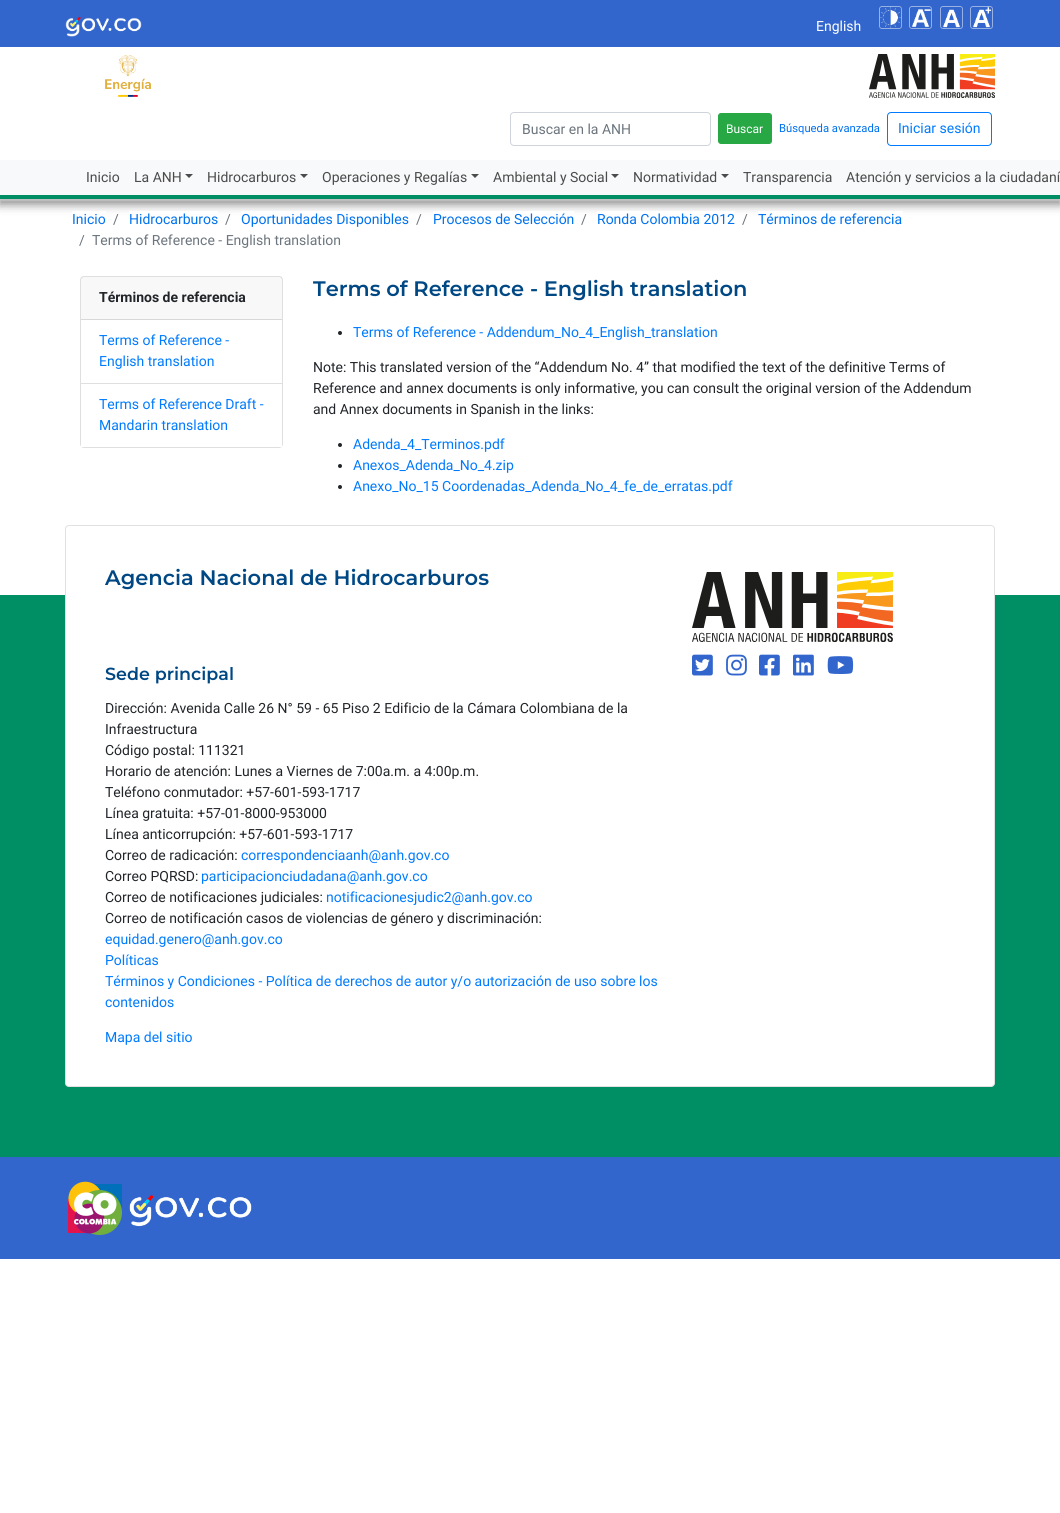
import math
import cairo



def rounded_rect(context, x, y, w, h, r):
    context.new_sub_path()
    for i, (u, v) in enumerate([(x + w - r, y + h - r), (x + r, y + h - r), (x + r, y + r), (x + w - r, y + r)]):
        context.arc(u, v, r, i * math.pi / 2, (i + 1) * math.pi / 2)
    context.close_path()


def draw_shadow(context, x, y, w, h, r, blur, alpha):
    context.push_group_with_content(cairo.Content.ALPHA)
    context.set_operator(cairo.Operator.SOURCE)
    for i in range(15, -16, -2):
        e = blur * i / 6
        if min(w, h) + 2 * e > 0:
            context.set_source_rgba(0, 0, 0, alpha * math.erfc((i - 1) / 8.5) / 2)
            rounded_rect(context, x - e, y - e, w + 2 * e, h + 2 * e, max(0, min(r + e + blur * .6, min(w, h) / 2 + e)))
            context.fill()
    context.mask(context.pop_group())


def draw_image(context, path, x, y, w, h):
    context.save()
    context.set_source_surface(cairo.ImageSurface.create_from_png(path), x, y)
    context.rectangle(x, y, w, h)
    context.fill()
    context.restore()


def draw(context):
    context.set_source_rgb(1, 1, 1)
    context.paint()
    context.set_source_rgb(51 / 255, 102 / 255, 204 / 255)
    context.rectangle(0, 0, 1060, 47)
    context.fill()
    draw_image(context, "images/1.png", 65, 16, 77, 21)
    draw_image(context, "images/2.png", 879, 6, 23, 23)
    draw_image(context, "images/3.png", 909, 6, 23, 23)
    draw_image(context, "images/4.png", 940, 6, 23, 23)
    draw_image(context, "images/5.png", 970, 6, 23, 23)
    draw_image(context, "images/6.png", 105, 55, 46, 42)
    draw_image(context, "images/7.png", 869, 54, 126, 44)
    rounded_rect(context, 510.5, 112.5, 200, 33, 3.5)
    context.set_source_rgb(206 / 255, 212 / 255, 218 / 255)
    context.set_line_width(1)
    context.stroke()
    context.set_source_rgb(40 / 255, 167 / 255, 69 / 255)
    rounded_rect(context, 718.5, 113.5, 53, 30, 2.5)
    context.fill_preserve()
    context.stroke()
    rounded_rect(context, 887.5, 112.5, 104, 33, 3.5)
    context.set_source_rgb(0, 123 / 255, 1)
    context.stroke()
    context.set_source_rgb(128 / 255, 128 / 255, 128 / 255)
    draw_shadow(context, 0, 200, 1060, 4, 0, 5, 1)
    context.set_source_rgb(248 / 255, 249 / 255, 250 / 255)
    context.rectangle(0, 160, 1060, 35)
    context.fill()
    context.set_source_rgb(75 / 255, 75 / 255, 75 / 255)
    context.new_path()
    context.move_to(185, 174)
    context.line_to(193, 174)
    context.line_to(189, 178)
    context.close_path()
    context.fill()
    context.new_path()
    context.move_to(300, 174)
    context.line_to(308, 174)
    context.line_to(304, 178)
    context.close_path()
    context.fill()
    context.new_path()
    context.move_to(471, 174)
    context.line_to(479, 174)
    context.line_to(475, 178)
    context.close_path()
    context.fill()
    context.new_path()
    context.move_to(611, 174)
    context.line_to(619, 174)
    context.line_to(615, 178)
    context.close_path()
    context.fill()
    context.new_path()
    context.move_to(721, 174)
    context.line_to(729, 174)
    context.line_to(725, 178)
    context.close_path()
    context.fill()
    context.set_source_rgb(0, 142 / 255, 101 / 255)
    context.rectangle(0, 195, 1060, 4)
    context.fill()
    context.set_source_rgb(1, 1, 1)
    context.rectangle(72, 211, 34, 3)
    context.fill()
    context.rectangle(129, 211, 89, 3)
    context.fill()
    context.rectangle(241, 211, 168, 3)
    context.fill()
    context.rectangle(433, 211, 141, 3)
    context.fill()
    context.rectangle(597, 211, 138, 3)
    context.fill()
    context.rectangle(758, 211, 145, 3)
    context.fill()
    rounded_rect(context, 80.5, 276.5, 202, 171, 3.5)
    context.set_source_rgb(223 / 255, 223 / 255, 223 / 255)
    context.stroke()
    context.set_source_rgba(0, 0, 0, 0.03)
    context.rectangle(81, 277, 201, 42)
    context.fill()
    context.set_source_rgb(216 / 255, 216 / 255, 216 / 255)
    context.rectangle(81, 319, 201, 1)
    context.fill()
    context.set_source_rgb(1, 1, 1)
    context.rectangle(81, 444, 201, 3)
    context.fill()
    context.set_source_rgb(223 / 255, 223 / 255, 223 / 255)
    context.rectangle(81, 383, 201, 1)
    context.fill()
    context.set_source_rgb(33 / 255, 37 / 255, 41 / 255)
    context.arc(340, 333, 2, 0, 2 * math.pi)
    context.fill()
    context.arc(340, 445, 2, 0, 2 * math.pi)
    context.fill()
    context.arc(340, 466, 2, 0, 2 * math.pi)
    context.fill()
    context.arc(340, 487, 2, 0, 2 * math.pi)
    context.fill()
    context.set_source_rgb(0, 142 / 255, 101 / 255)
    context.rectangle(0, 595, 1060, 562)
    context.fill()
    context.set_source_rgb(1, 1, 1)
    rounded_rect(context, 65, 525, 930, 562, 4)
    context.fill()
    rounded_rect(context, 65.5, 525.5, 929, 561, 3.5)
    context.set_source_rgba(0, 0, 0, 0.12)
    context.stroke()
    draw_image(context, "images/8.png", 692, 572, 201, 70)
    draw_image(context, "images/9.png", 692, 654, 21, 22)
    draw_image(context, "images/10.png", 726, 654, 21, 22)
    draw_image(context, "images/11.png", 759, 654, 21, 22)
    draw_image(context, "images/12.png", 793, 654, 21, 22)
    draw_image(context, "images/13.png", 827, 656, 27, 18)
    context.set_source_rgb(51 / 255, 102 / 255, 204 / 255)
    context.rectangle(0, 1157, 1060, 102)
    context.fill()
    draw_image(context, "images/14.png", 68, 1181, 54, 54)
    draw_image(context, "images/15.png", 129, 1195, 123, 32)
    context.select_font_face("Roboto")
    context.set_font_size(14)
    context.set_source_rgb(1, 1, 1)
    context.move_to(816, 31)
    context.show_text("English")
    context.set_source_rgb(108 / 255, 117 / 255, 125 / 255)
    context.move_to(522, 134)
    context.show_text("Buscar en la ANH")
    context.set_font_size(12)
    context.set_source_rgb(1, 1, 1)
    context.move_to(726, 133)
    context.show_text("Buscar")
    context.set_font_size(11.25)
    context.set_source_rgb(0, 114 / 255, 238 / 255)
    context.move_to(779, 132)
    context.show_text("Búsqueda avanzada")
    context.set_font_size(14)
    context.set_source_rgb(0, 123 / 255, 1)
    context.move_to(898, 133)
    context.show_text("Iniciar sesión")
    context.set_source_rgb(75 / 255, 75 / 255, 75 / 255)
    context.move_to(86, 182)
    context.show_text("Inicio")
    context.move_to(134, 182)
    context.show_text("La ANH")
    context.move_to(207, 182)
    context.show_text("Hidrocarburos")
    context.move_to(322, 182)
    context.show_text("Operaciones y Regalías")
    context.move_to(493, 182)
    context.show_text("Ambiental y Social")
    context.move_to(633, 182)
    context.show_text("Normatividad")
    context.move_to(743, 182)
    context.show_text("Transparencia")
    context.move_to(846, 182)
    context.show_text("Atención y servicios a la ciudadaní")
    context.set_source_rgb(0, 114 / 255, 238 / 255)
    context.move_to(72, 224)
    context.show_text("Inicio")
    context.set_source_rgb(108 / 255, 117 / 255, 125 / 255)
    context.move_to(113, 224)
    context.show_text("/")
    context.set_source_rgb(0, 114 / 255, 238 / 255)
    context.move_to(129, 224)
    context.show_text("Hidrocarburos")
    context.set_source_rgb(108 / 255, 117 / 255, 125 / 255)
    context.move_to(225, 224)
    context.show_text("/")
    context.set_source_rgb(0, 114 / 255, 238 / 255)
    context.move_to(241, 224)
    context.show_text("Oportunidades Disponibles")
    context.set_source_rgb(108 / 255, 117 / 255, 125 / 255)
    context.move_to(416, 224)
    context.show_text("/")
    context.set_source_rgb(0, 114 / 255, 238 / 255)
    context.move_to(433, 224)
    context.show_text("Procesos de Selección")
    context.set_source_rgb(108 / 255, 117 / 255, 125 / 255)
    context.move_to(581, 224)
    context.show_text("/")
    context.set_source_rgb(0, 114 / 255, 238 / 255)
    context.move_to(597, 224)
    context.show_text("Ronda Colombia 2012")
    context.set_source_rgb(108 / 255, 117 / 255, 125 / 255)
    context.move_to(742, 224)
    context.show_text("/")
    context.set_source_rgb(0, 114 / 255, 238 / 255)
    context.move_to(758, 224)
    context.show_text("Términos de referencia")
    context.set_source_rgb(108 / 255, 117 / 255, 125 / 255)
    context.move_to(79, 245)
    context.show_text("/")
    context.move_to(92, 245)
    context.show_text("Terms of Reference - English translation")
    context.select_font_face("Roboto", cairo.FontSlant.NORMAL, cairo.FontWeight.BOLD)
    context.set_source_rgb(33 / 255, 37 / 255, 41 / 255)
    context.move_to(99, 302)
    context.show_text("Términos de referencia")
    context.select_font_face("Roboto")
    context.set_source_rgb(0, 123 / 255, 1)
    context.move_to(99, 345)
    context.show_text("Terms of Reference -")
    context.move_to(99, 366)
    context.show_text("English translation")
    context.move_to(99, 409)
    context.show_text("Terms of Reference Draft -")
    context.move_to(99, 430)
    context.show_text("Mandarin translation")
    context.select_font_face("Montserrat SemiBold")
    context.set_font_size(21)
    context.set_source_rgb(0, 72 / 255, 132 / 255)
    context.move_to(313, 296)
    context.show_text("Terms of Reference - English translation")
    context.select_font_face("Roboto")
    context.set_font_size(14)
    context.set_source_rgb(0, 123 / 255, 1)
    context.move_to(353, 337)
    context.show_text("Terms of Reference - Addendum_No_4_English_translation")
    context.set_source_rgb(33 / 255, 37 / 255, 41 / 255)
    context.move_to(313, 372)
    context.show_text("Note: This translated version of the “Addendum No. 4” that modified the text of the definitive Terms of")
    context.move_to(313, 393)
    context.show_text("Reference and annex documents is only informative, you can consult the original version of the Addendum")
    context.move_to(313, 414)
    context.show_text("and Annex documents in Spanish in the links:")
    context.set_source_rgb(0, 123 / 255, 1)
    context.move_to(353, 449)
    context.show_text("Adenda_4_Terminos.pdf")
    context.move_to(353, 470)
    context.show_text("Anexos_Adenda_No_4.zip")
    context.move_to(353, 491)
    context.show_text("Anexo_No_15 Coordenadas_Adenda_No_4_fe_de_erratas.pdf")
    context.select_font_face("Montserrat SemiBold")
    context.set_font_size(21)
    context.set_source_rgb(0, 72 / 255, 132 / 255)
    context.move_to(105, 585)
    context.show_text("Agencia Nacional de Hidrocarburos")
    context.set_font_size(17.5)
    context.move_to(105, 680)
    context.show_text("Sede principal")
    context.select_font_face("Roboto")
    context.set_font_size(14)
    context.set_source_rgb(33 / 255, 37 / 255, 41 / 255)
    context.move_to(105, 713)
    context.show_text("Dirección: Avenida Calle 26 N° 59 - 65 Piso 2 Edificio de la Cámara Colombiana de la")
    context.move_to(105, 734)
    context.show_text("Infraestructura")
    context.move_to(105, 755)
    context.show_text("Código postal: 111321")
    context.move_to(105, 776)
    context.show_text("Horario de atención: Lunes a Viernes de 7:00a.m. a 4:00p.m.")
    context.move_to(105, 797)
    context.show_text("Teléfono conmutador: +57-601-593-1717")
    context.move_to(105, 818)
    context.show_text("Línea gratuita: +57-01-8000-953000")
    context.move_to(105, 839)
    context.show_text("Línea anticorrupción: +57-601-593-1717")
    context.move_to(105, 860)
    context.show_text("Correo de radicación:")
    context.set_source_rgb(0, 123 / 255, 1)
    context.move_to(241, 860)
    context.show_text("correspondenciaanh@anh.gov.co")
    context.set_source_rgb(33 / 255, 37 / 255, 41 / 255)
    context.move_to(105, 881)
    context.show_text("Correo PQRSD:")
    context.set_source_rgb(0, 123 / 255, 1)
    context.move_to(201, 881)
    context.show_text("participacionciudadana@anh.gov.co")
    context.set_source_rgb(33 / 255, 37 / 255, 41 / 255)
    context.move_to(105, 902)
    context.show_text("Correo de notificaciones judiciales:")
    context.set_source_rgb(0, 123 / 255, 1)
    context.move_to(326, 902)
    context.show_text("notificacionesjudic2@anh.gov.co")
    context.set_source_rgb(33 / 255, 37 / 255, 41 / 255)
    context.move_to(105, 923)
    context.show_text("Correo de notificación casos de violencias de género y discriminación:")
    context.set_source_rgb(0, 123 / 255, 1)
    context.move_to(105, 944)
    context.show_text("equidad.genero@anh.gov.co")
    context.move_to(105, 965)
    context.show_text("Políticas")
    context.move_to(105, 986)
    context.show_text("Términos y Condiciones - Política de derechos de autor y/o autorización de uso sobre los")
    context.move_to(105, 1007)
    context.show_text("contenidos")
    context.move_to(105, 1042)
    context.show_text("Mapa del sitio")


surface = cairo.ImageSurface(cairo.Format.RGB24, 1060, 1513)
context = cairo.Context(surface)
options = cairo.FontOptions()
options.set_hint_metrics(cairo.HintMetrics.OFF)
options.set_hint_style(cairo.HintStyle.NONE)
context.set_font_options(options)
context.set_miter_limit(4)
draw(context)
surface.write_to_png("out.png")
